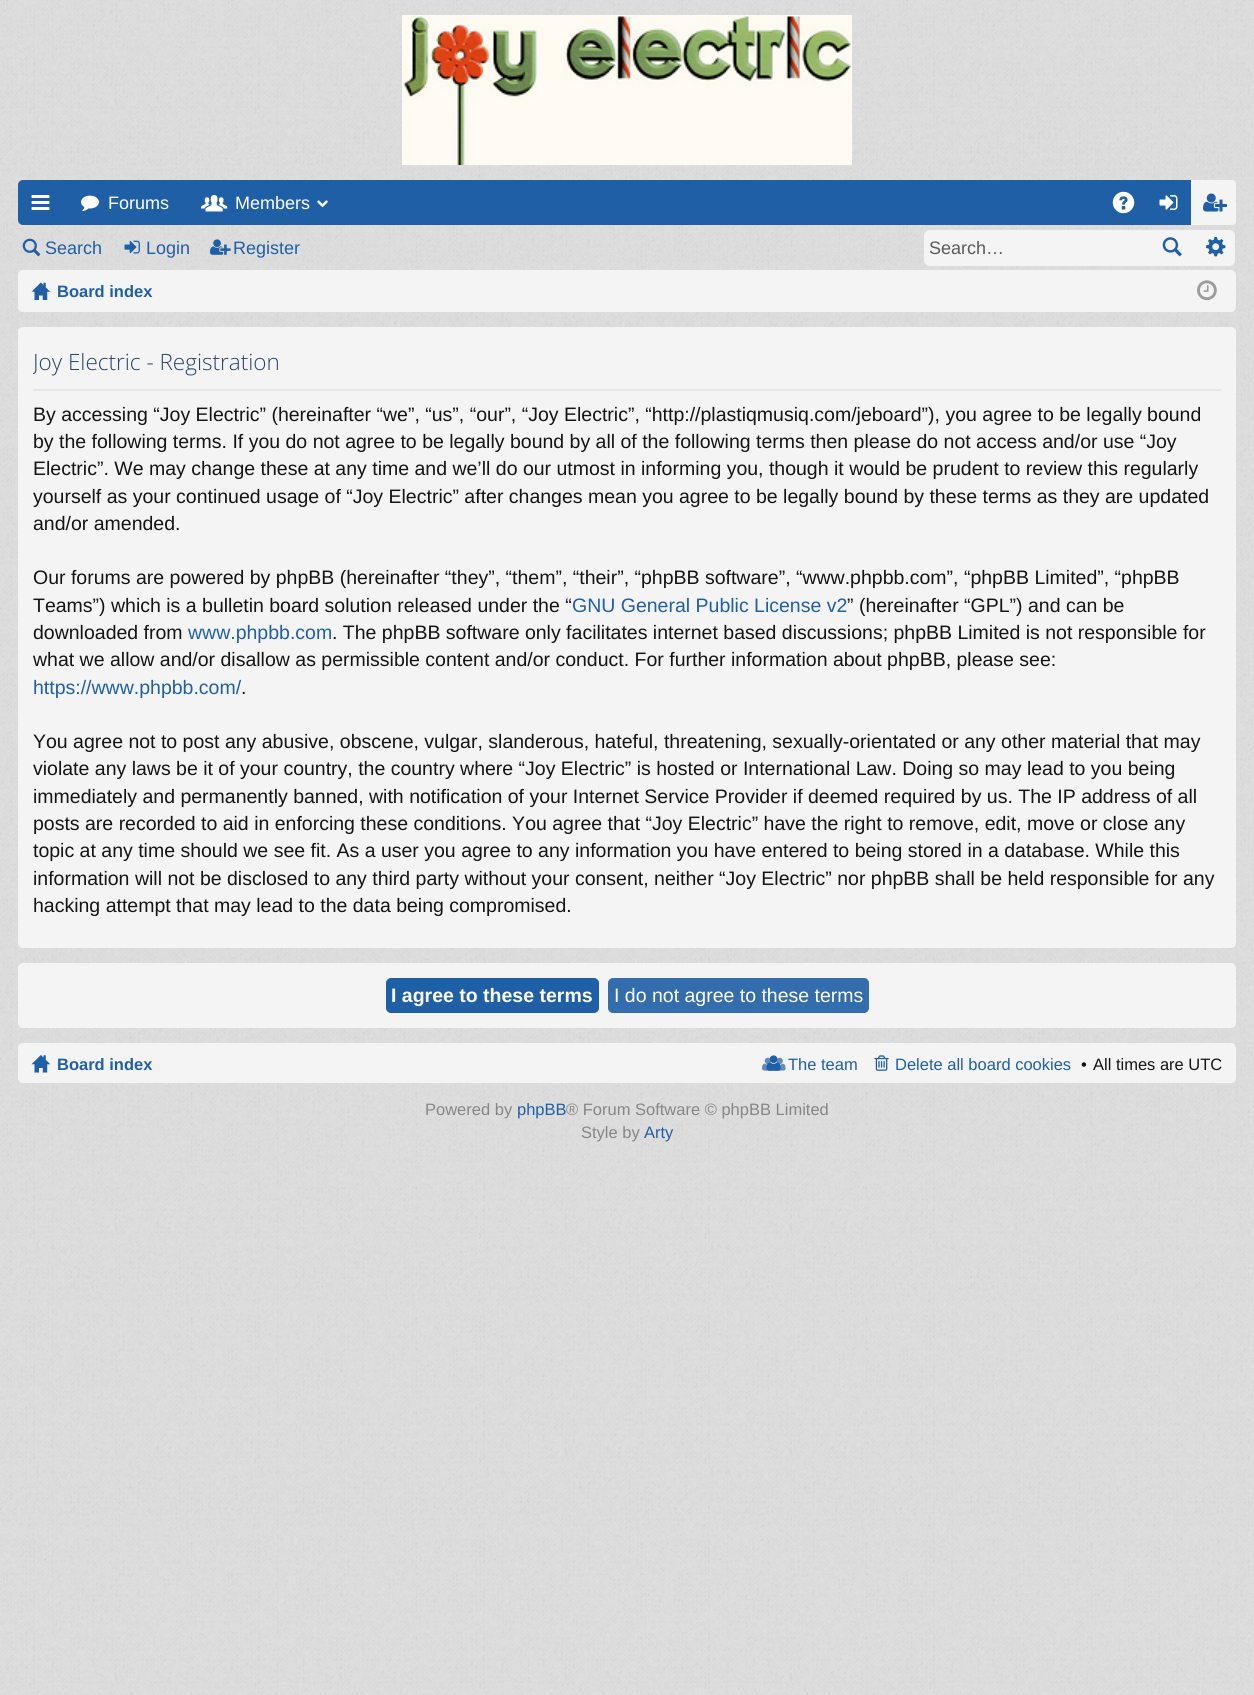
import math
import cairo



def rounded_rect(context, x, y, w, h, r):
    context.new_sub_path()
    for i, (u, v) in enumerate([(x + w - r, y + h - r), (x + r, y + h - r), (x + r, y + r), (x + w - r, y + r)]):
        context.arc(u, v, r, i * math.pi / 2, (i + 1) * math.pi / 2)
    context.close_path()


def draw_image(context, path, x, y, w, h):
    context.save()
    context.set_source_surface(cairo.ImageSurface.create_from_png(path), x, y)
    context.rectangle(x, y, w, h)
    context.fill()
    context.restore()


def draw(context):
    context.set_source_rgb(224 / 255, 224 / 255, 224 / 255)
    context.paint()
    draw_image(context, "images/1.png", 0, 0, 1254, 1695)
    draw_image(context, "images/2.png", 402, 15, 450, 150)
    context.set_source_rgb(31 / 255, 95 / 255, 166 / 255)
    rounded_rect(context, 18, 180, 1218, 45, 5)
    context.fill()
    draw_image(context, "images/3.png", 31, 195, 19, 15)
    draw_image(context, "images/4.png", 81, 195, 18, 16)
    draw_image(context, "images/5.png", 201, 195, 27, 17)
    draw_image(context, "images/6.png", 317, 200, 11, 8)
    draw_image(context, "images/7.png", 1112, 191, 23, 23)
    draw_image(context, "images/8.png", 1159, 195, 19, 15)
    context.set_source_rgb(244 / 255, 244 / 255, 244 / 255)
    context.new_path()
    context.move_to(1191, 180)
    context.line_to(1233, 180)
    context.curve_to(1234.5, 180, 1236, 181.5, 1236, 183)
    context.line_to(1236, 222)
    context.curve_to(1236, 223.5, 1234.5, 225, 1233, 225)
    context.line_to(1191, 225)
    context.close_path()
    context.fill()
    draw_image(context, "images/9.png", 1203, 193, 24, 19)
    draw_image(context, "images/10.png", 22, 238, 19, 19)
    draw_image(context, "images/11.png", 124, 240, 16, 14)
    draw_image(context, "images/12.png", 210, 239, 21, 16)
    context.new_path()
    context.move_to(930, 230)
    context.line_to(1149, 230)
    context.line_to(1149, 266)
    context.line_to(930, 266)
    context.curve_to(926.5, 266, 924, 263.5, 924, 260)
    context.line_to(924, 236)
    context.curve_to(924, 232.5, 926.5, 230, 930, 230)
    context.close_path()
    context.fill()
    context.rectangle(1149, 230, 45, 36)
    context.fill()
    draw_image(context, "images/13.png", 1162, 237, 20, 20)
    context.new_path()
    context.move_to(1194, 230)
    context.line_to(1229, 230)
    context.curve_to(1232.5, 230, 1235, 232.5, 1235, 236)
    context.line_to(1235, 260)
    context.curve_to(1235, 263.5, 1232.5, 266, 1229, 266)
    context.line_to(1194, 266)
    context.close_path()
    context.fill()
    draw_image(context, "images/14.png", 1206, 237, 20, 20)
    rounded_rect(context, 18, 270, 1218, 42, 5)
    context.fill()
    draw_image(context, "images/15.png", 31, 282, 20, 18)
    draw_image(context, "images/16.png", 1197, 280, 20, 21)
    rounded_rect(context, 18, 327, 1218, 621, 5)
    context.fill()
    context.set_source_rgb(231 / 255, 231 / 255, 231 / 255)
    context.rectangle(33, 389, 1188, 2)
    context.fill()
    context.set_source_rgb(244 / 255, 244 / 255, 244 / 255)
    rounded_rect(context, 18, 963, 1218, 65, 5)
    context.fill()
    context.set_source_rgb(31 / 255, 95 / 255, 166 / 255)
    rounded_rect(context, 387, 979, 211, 33, 4)
    context.fill_preserve()
    context.stroke()
    context.set_source_rgb(52 / 255, 109 / 255, 173 / 255)
    rounded_rect(context, 609, 979, 259, 33, 4)
    context.fill_preserve()
    context.stroke()
    context.set_source_rgb(244 / 255, 244 / 255, 244 / 255)
    rounded_rect(context, 18, 1043, 1218, 40, 5)
    context.fill()
    draw_image(context, "images/17.png", 31, 1055, 20, 18)
    draw_image(context, "images/19.png", 762, 1057, 24, 14)
    draw_image(context, "images/18.png", 766, 1055, 15, 16)
    draw_image(context, "images/20.png", 874, 1055, 15, 16)
    context.select_font_face("Liberation Sans")
    context.set_font_size(18)
    context.set_source_rgb(1, 1, 1)
    context.move_to(108, 209)
    context.show_text("Forums")
    context.move_to(235, 209)
    context.show_text("Members")
    context.set_source_rgb(31 / 255, 95 / 255, 166 / 255)
    context.move_to(45, 254)
    context.show_text("Search")
    context.move_to(146, 254)
    context.show_text("Login")
    context.move_to(233, 254)
    context.show_text("Register")
    context.set_source_rgb(90 / 255, 90 / 255, 90 / 255)
    context.move_to(929, 254)
    context.show_text("Search…")
    context.select_font_face("Liberation Sans", cairo.FontSlant.NORMAL, cairo.FontWeight.BOLD)
    context.set_font_size(16.5)
    context.set_source_rgb(31 / 255, 95 / 255, 166 / 255)
    context.move_to(57, 297)
    context.show_text("Board index")
    context.save()
    context.rectangle(33, 335, 1188, 606)
    context.clip()
    context.select_font_face("Open Sans Light")
    context.set_font_size(22.5)
    context.set_source_rgb(41 / 255, 71 / 255, 105 / 255)
    context.move_to(33, 370)
    context.show_text("Joy Electric - Registration")
    context.restore()
    context.select_font_face("Liberation Sans")
    context.set_font_size(19.5)
    context.set_source_rgb(20 / 255, 20 / 255, 20 / 255)
    context.move_to(33, 421)
    context.show_text("By accessing “Joy Electric” (hereinafter “we”, “us”, “our”, “Joy Electric”, “http://plastiqmusiq.com/jeboard”), you agree to be legally bound")
    context.move_to(33, 448)
    context.show_text("by the following terms. If you do not agree to be legally bound by all of the following terms then please do not access and/or use “Joy")
    context.move_to(33, 475)
    context.show_text("Electric”. We may change these at any time and we’ll do our utmost in informing you, though it would be prudent to review this regularly")
    context.move_to(33, 503)
    context.show_text("yourself as your continued usage of “Joy Electric” after changes mean you agree to be legally bound by these terms as they are updated")
    context.move_to(33, 530)
    context.show_text("and/or amended.")
    context.move_to(33, 584)
    context.show_text("Our forums are powered by phpBB (hereinafter “they”, “them”, “their”, “phpBB software”, “www.phpbb.com”, “phpBB Limited”, “phpBB")
    context.move_to(33, 612)
    context.show_text("Teams”) which is a bulletin board solution released under the “")
    context.set_source_rgb(31 / 255, 95 / 255, 166 / 255)
    context.move_to(572, 612)
    context.show_text("GNU General Public License v2")
    context.set_source_rgb(20 / 255, 20 / 255, 20 / 255)
    context.move_to(847, 612)
    context.show_text("” (hereinafter “GPL”) and can be")
    context.move_to(33, 639)
    context.show_text("downloaded from")
    context.set_source_rgb(31 / 255, 95 / 255, 166 / 255)
    context.move_to(188, 639)
    context.show_text("www.phpbb.com")
    context.set_source_rgb(20 / 255, 20 / 255, 20 / 255)
    context.move_to(332, 639)
    context.show_text(". The phpBB software only facilitates internet based discussions; phpBB Limited is not responsible for")
    context.move_to(33, 666)
    context.show_text("what we allow and/or disallow as permissible content and/or conduct. For further information about phpBB, please see:")
    context.set_source_rgb(31 / 255, 95 / 255, 166 / 255)
    context.move_to(33, 694)
    context.show_text("https://www.phpbb.com/")
    context.set_source_rgb(20 / 255, 20 / 255, 20 / 255)
    context.move_to(241, 694)
    context.show_text(".")
    context.move_to(33, 748)
    context.show_text("You agree not to post any abusive, obscene, vulgar, slanderous, hateful, threatening, sexually-orientated or any other material that may")
    context.move_to(33, 775)
    context.show_text("violate any laws be it of your country, the country where “Joy Electric” is hosted or International Law. Doing so may lead to you being")
    context.move_to(33, 803)
    context.show_text("immediately and permanently banned, with notification of your Internet Service Provider if deemed required by us. The IP address of all")
    context.move_to(33, 830)
    context.show_text("posts are recorded to aid in enforcing these conditions. You agree that “Joy Electric” have the right to remove, edit, move or close any")
    context.move_to(33, 857)
    context.show_text("topic at any time should we see fit. As a user you agree to any information you have entered to being stored in a database. While this")
    context.move_to(33, 885)
    context.show_text("information will not be disclosed to any third party without your consent, neither “Joy Electric” nor phpBB shall be held responsible for any")
    context.move_to(33, 912)
    context.show_text("hacking attempt that may lead to the data being compromised.")
    context.select_font_face("Liberation Sans", cairo.FontSlant.NORMAL, cairo.FontWeight.BOLD)
    context.set_source_rgb(1, 1, 1)
    context.move_to(391, 1002)
    context.show_text("I agree to these terms")
    context.select_font_face("Liberation Sans")
    context.move_to(614, 1002)
    context.show_text("I do not agree to these terms")
    context.select_font_face("Liberation Sans", cairo.FontSlant.NORMAL, cairo.FontWeight.BOLD)
    context.set_font_size(16.5)
    context.set_source_rgb(31 / 255, 95 / 255, 166 / 255)
    context.move_to(57, 1070)
    context.show_text("Board index")
    context.select_font_face("Liberation Sans")
    context.move_to(788, 1070)
    context.show_text("The team")
    context.move_to(895, 1070)
    context.show_text("Delete all board cookies")
    context.set_source_rgb(20 / 255, 20 / 255, 20 / 255)
    context.move_to(1081, 1070)
    context.show_text("•")
    context.move_to(1093, 1070)
    context.show_text("All times are UTC")
    context.set_source_rgb(134 / 255, 134 / 255, 134 / 255)
    context.move_to(425, 1115)
    context.show_text("Powered by")
    context.set_source_rgb(31 / 255, 95 / 255, 166 / 255)
    context.move_to(517, 1115)
    context.show_text("phpBB")
    context.set_source_rgb(134 / 255, 134 / 255, 134 / 255)
    context.move_to(566, 1115)
    context.show_text("® Forum Software © phpBB Limited")
    context.move_to(581, 1138)
    context.show_text("Style by")
    context.set_source_rgb(31 / 255, 95 / 255, 166 / 255)
    context.move_to(644, 1138)
    context.show_text("Arty")


surface = cairo.ImageSurface(cairo.Format.RGB24, 1254, 1695)
context = cairo.Context(surface)
options = cairo.FontOptions()
options.set_hint_metrics(cairo.HintMetrics.OFF)
options.set_hint_style(cairo.HintStyle.NONE)
context.set_font_options(options)
context.set_miter_limit(4)
draw(context)
surface.write_to_png("out.png")
